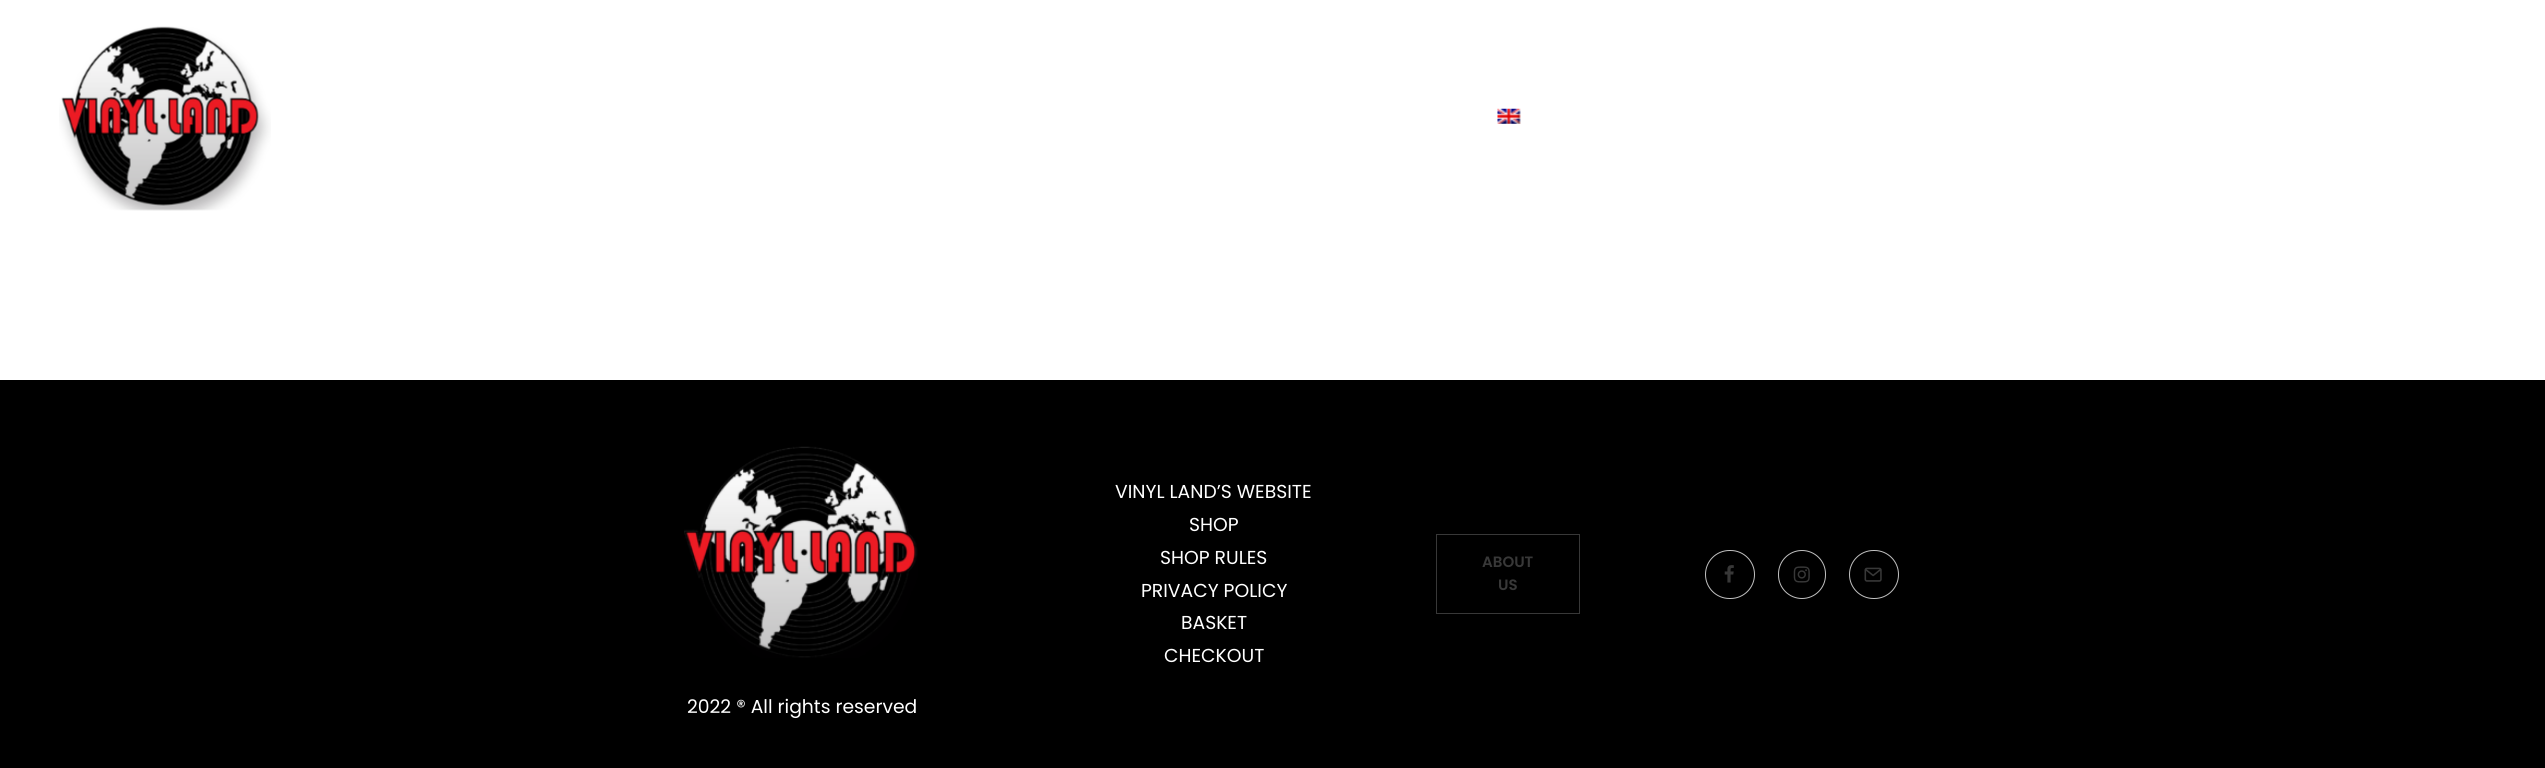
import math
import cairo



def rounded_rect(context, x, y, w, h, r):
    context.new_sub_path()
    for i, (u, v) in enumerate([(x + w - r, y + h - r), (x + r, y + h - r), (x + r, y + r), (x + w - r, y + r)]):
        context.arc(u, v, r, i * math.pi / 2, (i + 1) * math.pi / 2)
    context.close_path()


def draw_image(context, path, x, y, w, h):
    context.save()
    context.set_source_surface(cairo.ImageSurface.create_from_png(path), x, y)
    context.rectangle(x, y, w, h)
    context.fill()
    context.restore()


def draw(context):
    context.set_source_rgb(1, 1, 1)
    context.paint()
    draw_image(context, "images/1.png", 59, 26, 212, 185)
    draw_image(context, "images/2.png", 1497, 108, 24, 16)
    context.set_source_rgb(0, 0, 0)
    context.rectangle(0, 380, 2545, 388)
    context.fill()
    context.rectangle(1436.5, 534.5, 143, 79)
    context.set_source_rgb(56 / 255, 56 / 255, 56 / 255)
    context.set_line_width(1)
    context.stroke()
    rounded_rect(context, 1705.5, 550.5, 49, 48, 24)
    context.set_source_rgb(192 / 255, 192 / 255, 192 / 255)
    context.stroke()
    draw_image(context, "images/3.png", 1724, 565, 10, 18)
    rounded_rect(context, 1778.5, 550.5, 47, 48, 23.5)
    context.stroke()
    draw_image(context, "images/4.png", 1793, 566, 17, 17)
    rounded_rect(context, 1849.5, 550.5, 49, 48, 24)
    context.stroke()
    draw_image(context, "images/5.png", 1864, 567, 18, 15)
    draw_image(context, "images/6.png", 684, 446, 234, 212)
    context.select_font_face("Poppins")
    context.set_font_size(18.75)
    context.set_source_rgb(1, 1, 1)
    context.move_to(1115, 498)
    context.show_text("VINYL LAND’S WEBSITE")
    context.move_to(1189, 531)
    context.show_text("SHOP")
    context.move_to(1160, 564)
    context.show_text("SHOP RULES")
    context.move_to(1141, 597)
    context.show_text("PRIVACY POLICY")
    context.move_to(1181, 629)
    context.show_text("BASKET")
    context.move_to(1164, 662)
    context.show_text("CHECKOUT")
    context.select_font_face("Poppins SemiBold")
    context.set_font_size(15)
    context.set_source_rgb(56 / 255, 56 / 255, 56 / 255)
    context.move_to(1482, 567)
    context.show_text("ABOUT")
    context.move_to(1498, 590)
    context.show_text("US")
    context.select_font_face("Poppins")
    context.set_font_size(18.75)
    context.set_source_rgb(1, 1, 1)
    context.move_to(687, 713)
    context.show_text("2022 ® All rights reserved")


surface = cairo.ImageSurface(cairo.Format.RGB24, 2545, 768)
context = cairo.Context(surface)
options = cairo.FontOptions()
options.set_hint_metrics(cairo.HintMetrics.OFF)
options.set_hint_style(cairo.HintStyle.NONE)
context.set_font_options(options)
context.set_miter_limit(4)
draw(context)
surface.write_to_png("out.png")
